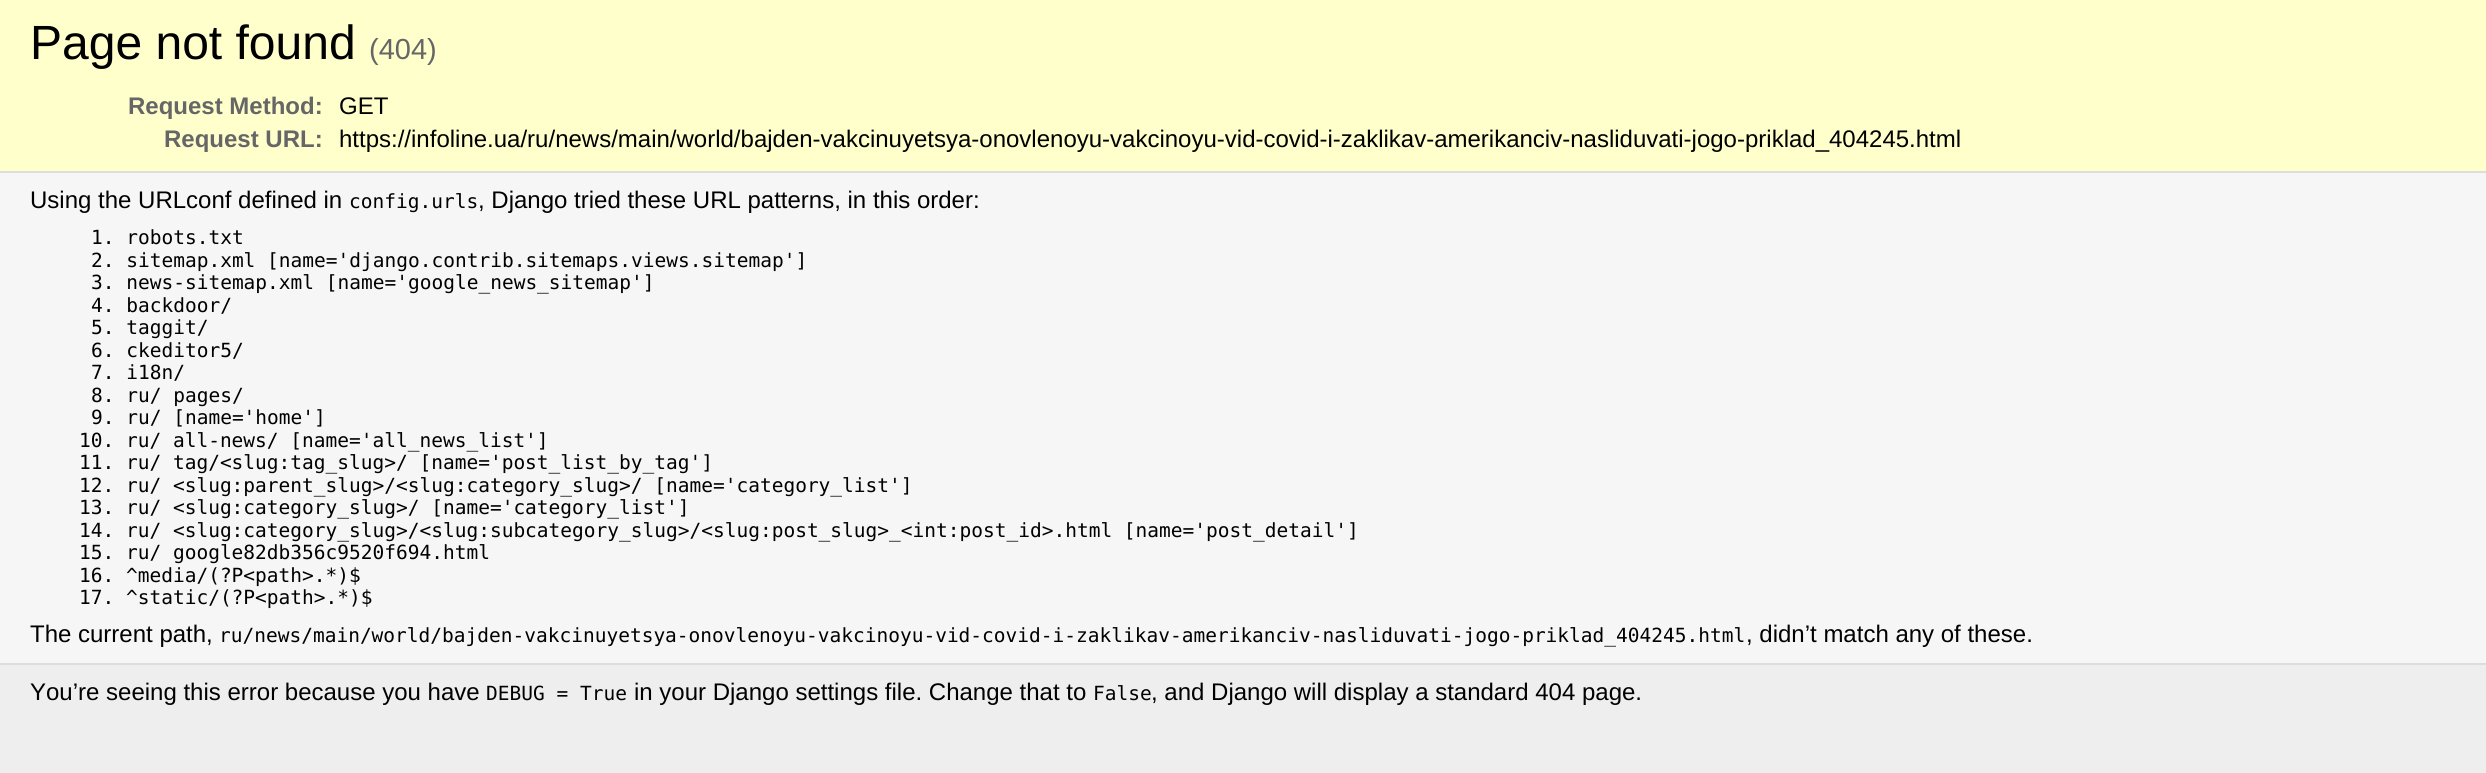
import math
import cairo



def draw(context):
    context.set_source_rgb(238 / 255, 238 / 255, 238 / 255)
    context.paint()
    context.set_source_rgb(1, 1, 204 / 255)
    context.rectangle(0, 0, 2486, 171)
    context.fill()
    context.set_source_rgb(221 / 255, 221 / 255, 221 / 255)
    context.rectangle(0, 171, 2486, 2)
    context.fill()
    context.set_source_rgb(246 / 255, 246 / 255, 246 / 255)
    context.rectangle(0, 173, 2486, 490)
    context.fill()
    context.set_source_rgb(221 / 255, 221 / 255, 221 / 255)
    context.rectangle(0, 663, 2486, 2)
    context.fill()
    context.select_font_face("Liberation Sans")
    context.set_font_size(48)
    context.set_source_rgb(0, 0, 0)
    context.move_to(30, 59)
    context.show_text("Page not found")
    context.set_font_size(29)
    context.set_source_rgb(102 / 255, 102 / 255, 102 / 255)
    context.move_to(369, 59)
    context.show_text("(404)")
    context.select_font_face("Liberation Sans", cairo.FontSlant.NORMAL, cairo.FontWeight.BOLD)
    context.set_font_size(24)
    context.move_to(128, 114)
    context.show_text("Request Method:")
    context.select_font_face("Liberation Sans")
    context.set_source_rgb(0, 0, 0)
    context.move_to(339, 114)
    context.show_text("GET")
    context.select_font_face("Liberation Sans", cairo.FontSlant.NORMAL, cairo.FontWeight.BOLD)
    context.set_source_rgb(102 / 255, 102 / 255, 102 / 255)
    context.move_to(164, 147)
    context.show_text("Request URL:")
    context.select_font_face("Liberation Sans")
    context.set_source_rgb(0, 0, 0)
    context.move_to(339, 147)
    context.show_text("https://infoline.ua/ru/news/main/world/bajden-vakcinuyetsya-onovlenoyu-vakcinoyu-vid-covid-i-zaklikav-amerikanciv-nasliduvati-jogo-priklad_404245.html")
    context.move_to(30, 208)
    context.show_text("Using the URLconf defined in")
    context.select_font_face("DejaVu Sans Mono")
    context.set_font_size(19.5)
    context.move_to(349, 208)
    context.show_text("config.urls")
    context.select_font_face("Liberation Sans")
    context.set_font_size(24)
    context.move_to(478, 208)
    context.show_text(", Django tried these URL patterns, in this order:")
    context.select_font_face("DejaVu Sans Mono")
    context.set_font_size(19.5)
    context.move_to(91, 244)
    context.show_text("1. robots.txt")
    context.move_to(91, 267)
    context.show_text("2. sitemap.xml [name='django.contrib.sitemaps.views.sitemap']")
    context.move_to(91, 289)
    context.show_text("3. news-sitemap.xml [name='google_news_sitemap']")
    context.move_to(91, 312)
    context.show_text("4. backdoor/")
    context.move_to(91, 334)
    context.show_text("5. taggit/")
    context.move_to(91, 357)
    context.show_text("6. ckeditor5/")
    context.move_to(91, 379)
    context.show_text("7. i18n/")
    context.move_to(91, 402)
    context.show_text("8. ru/ pages/")
    context.move_to(91, 424)
    context.show_text("9. ru/ [name='home']")
    context.move_to(79, 447)
    context.show_text("10. ru/ all-news/ [name='all_news_list']")
    context.move_to(79, 469)
    context.show_text("11. ru/ tag/<slug:tag_slug>/ [name='post_list_by_tag']")
    context.move_to(79, 492)
    context.show_text("12. ru/ <slug:parent_slug>/<slug:category_slug>/ [name='category_list']")
    context.move_to(79, 514)
    context.show_text("13. ru/ <slug:category_slug>/ [name='category_list']")
    context.move_to(79, 537)
    context.show_text("14. ru/ <slug:category_slug>/<slug:subcategory_slug>/<slug:post_slug>_<int:post_id>.html [name='post_detail']")
    context.move_to(79, 559)
    context.show_text("15. ru/ google82db356c9520f694.html")
    context.move_to(79, 582)
    context.show_text("16. ^media/(?P<path>.*)$")
    context.move_to(79, 604)
    context.show_text("17. ^static/(?P<path>.*)$")
    context.select_font_face("Liberation Sans")
    context.set_font_size(24)
    context.move_to(30, 642)
    context.show_text("The current path,")
    context.select_font_face("DejaVu Sans Mono")
    context.set_font_size(19.5)
    context.move_to(219, 642)
    context.show_text("ru/news/main/world/bajden-vakcinuyetsya-onovlenoyu-vakcinoyu-vid-covid-i-zaklikav-amerikanciv-nasliduvati-jogo-priklad_404245.html")
    context.select_font_face("Liberation Sans")
    context.set_font_size(24)
    context.move_to(1746, 642)
    context.show_text(", didn’t match any of these.")
    context.move_to(30, 700)
    context.show_text("You’re seeing this error because you have")
    context.select_font_face("DejaVu Sans Mono")
    context.set_font_size(19.5)
    context.move_to(486, 700)
    context.show_text("DEBUG = True")
    context.select_font_face("Liberation Sans")
    context.set_font_size(24)
    context.move_to(634, 700)
    context.show_text("in your Django settings file. Change that to")
    context.select_font_face("DejaVu Sans Mono")
    context.set_font_size(19.5)
    context.move_to(1093, 700)
    context.show_text("False")
    context.select_font_face("Liberation Sans")
    context.set_font_size(24)
    context.move_to(1151, 700)
    context.show_text(", and Django will display a standard 404 page.")


surface = cairo.ImageSurface(cairo.Format.RGB24, 2486, 773)
context = cairo.Context(surface)
options = cairo.FontOptions()
options.set_hint_metrics(cairo.HintMetrics.OFF)
options.set_hint_style(cairo.HintStyle.NONE)
context.set_font_options(options)
context.set_miter_limit(4)
draw(context)
surface.write_to_png("out.png")
